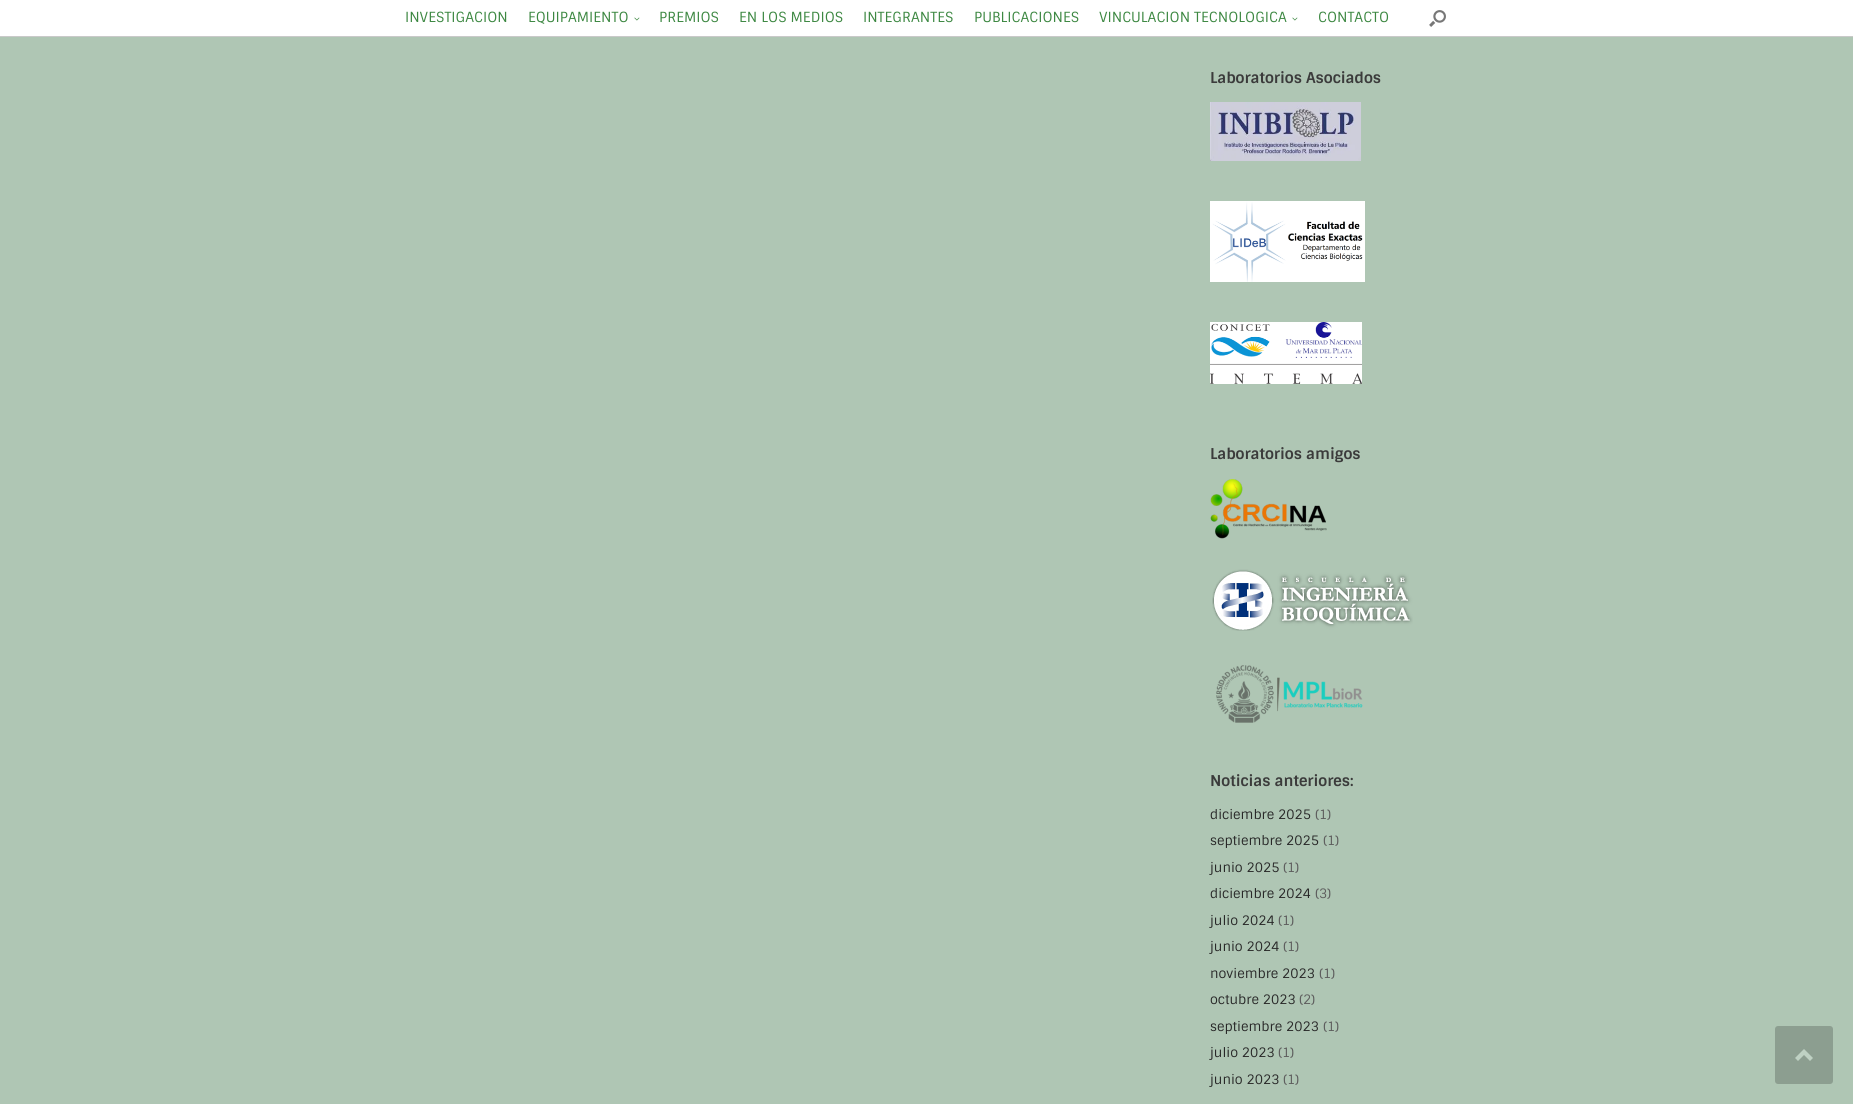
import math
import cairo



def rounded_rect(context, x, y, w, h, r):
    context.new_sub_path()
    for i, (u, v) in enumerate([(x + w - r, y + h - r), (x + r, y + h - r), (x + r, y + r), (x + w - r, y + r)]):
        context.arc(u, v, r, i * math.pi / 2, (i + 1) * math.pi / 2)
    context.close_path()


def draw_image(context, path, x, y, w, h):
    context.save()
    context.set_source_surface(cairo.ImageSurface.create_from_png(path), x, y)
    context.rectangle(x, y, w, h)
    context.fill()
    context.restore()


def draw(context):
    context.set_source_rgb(175 / 255, 198 / 255, 180 / 255)
    context.paint()
    context.set_source_rgb(1, 1, 1)
    context.rectangle(0, 0, 1853, 36)
    context.fill()
    context.set_source_rgb(201 / 255, 201 / 255, 201 / 255)
    context.rectangle(0, 36, 1853, 1)
    context.fill()
    draw_image(context, "images/1.png", 634, 17, 6, 4)
    draw_image(context, "images/1.png", 1292, 17, 6, 4)
    draw_image(context, "images/2.png", 1429, 10, 17, 17)
    draw_image(context, "images/3.png", 1210, 102, 151, 59)
    draw_image(context, "images/4.png", 1210, 201, 155, 81)
    draw_image(context, "images/5.png", 1210, 322, 152, 62)
    draw_image(context, "images/6.png", 1210, 479, 117, 60)
    draw_image(context, "images/7.png", 1212, 569, 201, 62)
    draw_image(context, "images/8.png", 1216, 665, 147, 58)
    context.set_source_rgb(140 / 255, 158 / 255, 144 / 255)
    rounded_rect(context, 1775, 1026, 58, 58, 3)
    context.fill()
    context.set_source_rgb(191 / 255, 209 / 255, 195 / 255)
    context.new_path()
    context.move_to(1813, 1058)
    context.line_to(1804, 1049)
    context.line_to(1795, 1058)
    context.line_to(1798, 1061)
    context.line_to(1804, 1055)
    context.line_to(1810, 1061)
    context.close_path()
    context.fill()
    context.select_font_face("Sintony")
    context.set_font_size(14)
    context.set_source_rgb(61 / 255, 136 / 255, 66 / 255)
    context.move_to(405, 22)
    context.show_text("INVESTIGACION")
    context.move_to(528, 22)
    context.show_text("EQUIPAMIENTO")
    context.move_to(659, 22)
    context.show_text("PREMIOS")
    context.move_to(739, 22)
    context.show_text("EN LOS MEDIOS")
    context.move_to(863, 22)
    context.show_text("INTEGRANTES")
    context.move_to(974, 22)
    context.show_text("PUBLICACIONES")
    context.move_to(1099, 22)
    context.show_text("VINCULACION TECNOLOGICA")
    context.move_to(1318, 22)
    context.show_text("CONTACTO")
    context.select_font_face("Sintony", cairo.FontSlant.NORMAL, cairo.FontWeight.BOLD)
    context.set_font_size(15)
    context.set_source_rgb(59 / 255, 59 / 255, 59 / 255)
    context.move_to(1210, 83)
    context.show_text("Laboratorios Asociados")
    context.move_to(1210, 459)
    context.show_text("Laboratorios amigos")
    context.move_to(1210, 786)
    context.show_text("Noticias anteriores:")
    context.select_font_face("Sintony")
    context.set_font_size(13)
    context.set_source_rgb(40 / 255, 40 / 255, 40 / 255)
    context.move_to(1210, 819)
    context.show_text("diciembre 2025")
    context.set_source_rgb(94 / 255, 94 / 255, 94 / 255)
    context.move_to(1315, 819)
    context.show_text("(1)")
    context.set_source_rgb(40 / 255, 40 / 255, 40 / 255)
    context.move_to(1210, 845)
    context.show_text("septiembre 2025")
    context.set_source_rgb(94 / 255, 94 / 255, 94 / 255)
    context.move_to(1323, 845)
    context.show_text("(1)")
    context.set_source_rgb(40 / 255, 40 / 255, 40 / 255)
    context.move_to(1210, 872)
    context.show_text("junio 2025")
    context.set_source_rgb(94 / 255, 94 / 255, 94 / 255)
    context.move_to(1283, 872)
    context.show_text("(1)")
    context.set_source_rgb(40 / 255, 40 / 255, 40 / 255)
    context.move_to(1210, 898)
    context.show_text("diciembre 2024")
    context.set_source_rgb(94 / 255, 94 / 255, 94 / 255)
    context.move_to(1315, 898)
    context.show_text("(3)")
    context.set_source_rgb(40 / 255, 40 / 255, 40 / 255)
    context.move_to(1210, 925)
    context.show_text("julio 2024")
    context.set_source_rgb(94 / 255, 94 / 255, 94 / 255)
    context.move_to(1278, 925)
    context.show_text("(1)")
    context.set_source_rgb(40 / 255, 40 / 255, 40 / 255)
    context.move_to(1210, 951)
    context.show_text("junio 2024")
    context.set_source_rgb(94 / 255, 94 / 255, 94 / 255)
    context.move_to(1283, 951)
    context.show_text("(1)")
    context.set_source_rgb(40 / 255, 40 / 255, 40 / 255)
    context.move_to(1210, 978)
    context.show_text("noviembre 2023")
    context.set_source_rgb(94 / 255, 94 / 255, 94 / 255)
    context.move_to(1319, 978)
    context.show_text("(1)")
    context.set_source_rgb(40 / 255, 40 / 255, 40 / 255)
    context.move_to(1210, 1004)
    context.show_text("octubre 2023")
    context.set_source_rgb(94 / 255, 94 / 255, 94 / 255)
    context.move_to(1299, 1004)
    context.show_text("(2)")
    context.set_source_rgb(40 / 255, 40 / 255, 40 / 255)
    context.move_to(1210, 1031)
    context.show_text("septiembre 2023")
    context.set_source_rgb(94 / 255, 94 / 255, 94 / 255)
    context.move_to(1323, 1031)
    context.show_text("(1)")
    context.set_source_rgb(40 / 255, 40 / 255, 40 / 255)
    context.move_to(1210, 1057)
    context.show_text("julio 2023")
    context.set_source_rgb(94 / 255, 94 / 255, 94 / 255)
    context.move_to(1278, 1057)
    context.show_text("(1)")
    context.set_source_rgb(40 / 255, 40 / 255, 40 / 255)
    context.move_to(1210, 1084)
    context.show_text("junio 2023")
    context.set_source_rgb(94 / 255, 94 / 255, 94 / 255)
    context.move_to(1283, 1084)
    context.show_text("(1)")


surface = cairo.ImageSurface(cairo.Format.RGB24, 1853, 1104)
context = cairo.Context(surface)
options = cairo.FontOptions()
options.set_hint_metrics(cairo.HintMetrics.OFF)
options.set_hint_style(cairo.HintStyle.NONE)
context.set_font_options(options)
context.set_miter_limit(4)
draw(context)
surface.write_to_png("out.png")
